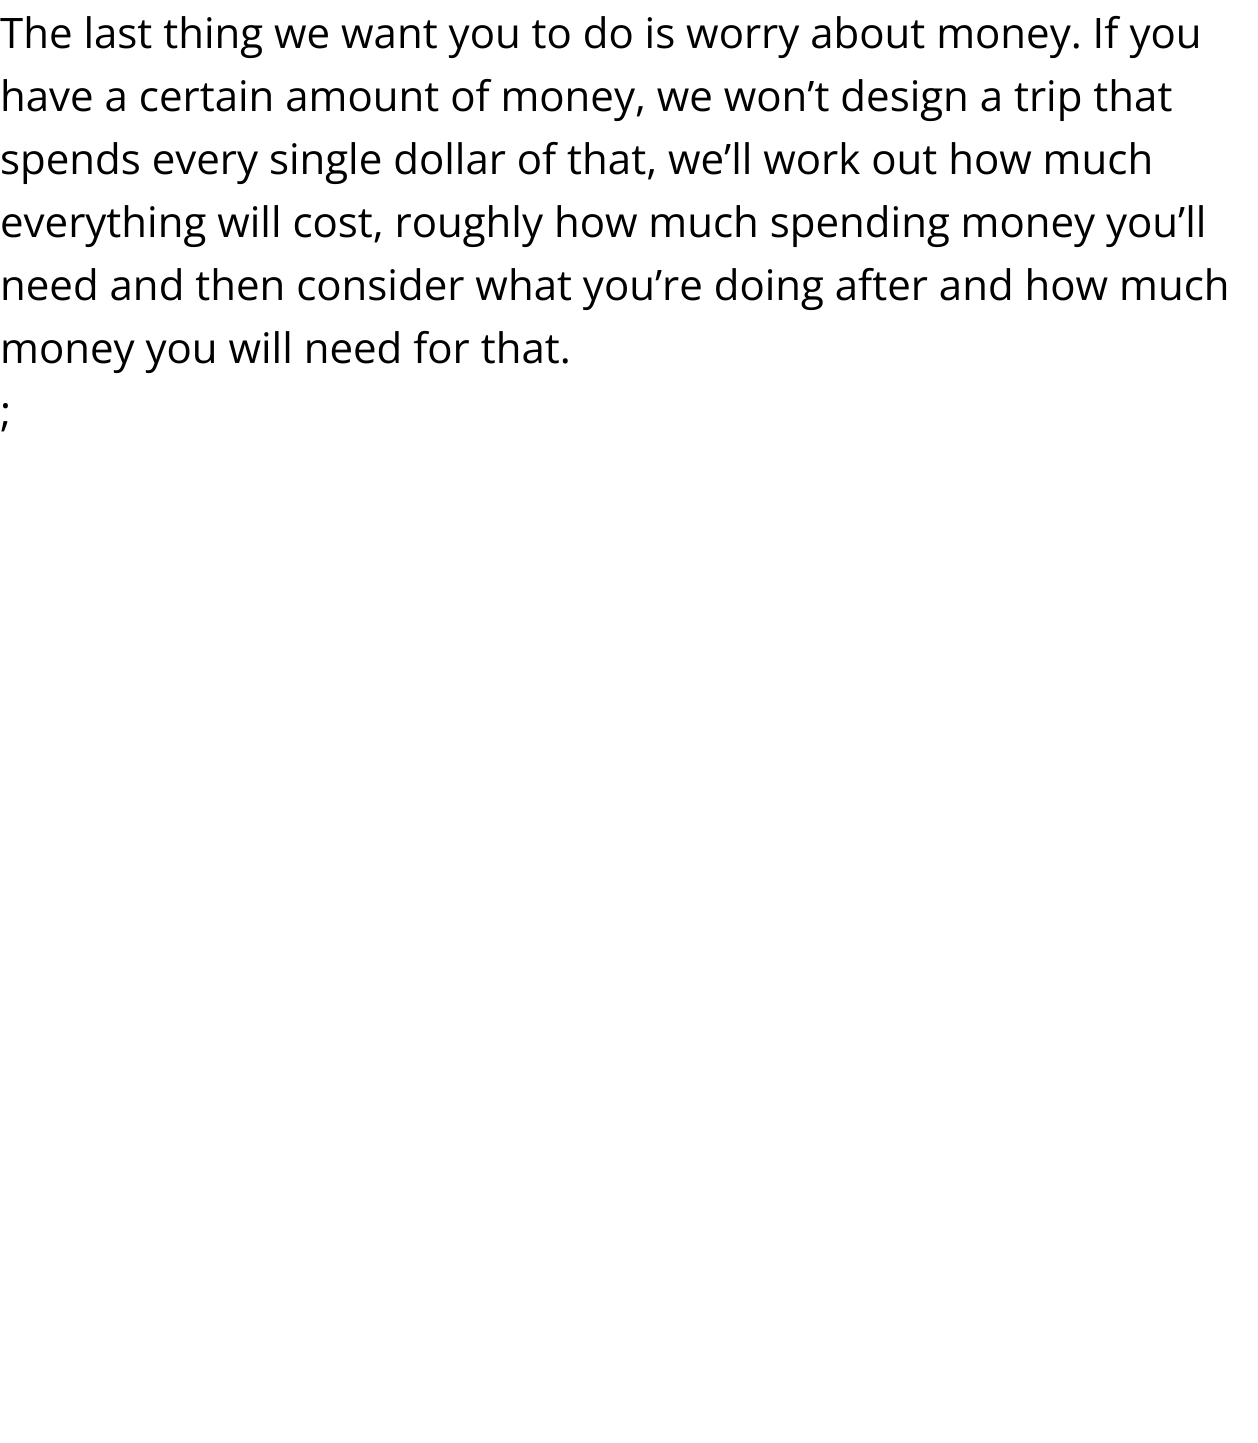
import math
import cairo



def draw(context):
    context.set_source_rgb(1, 1, 1)
    context.paint()
    context.select_font_face("Open Sans")
    context.set_font_size(42)
    context.set_source_rgb(0, 0, 0)
    context.move_to(0, 48)
    context.show_text("The last thing we want you to do is worry about money. If you")
    context.move_to(0, 111)
    context.show_text("have a certain amount of money, we won’t design a trip that")
    context.move_to(0, 174)
    context.show_text("spends every single dollar of that, we’ll work out how much")
    context.move_to(0, 237)
    context.show_text("everything will cost, roughly how much spending money you’ll")
    context.move_to(0, 300)
    context.show_text("need and then consider what you’re doing after and how much")
    context.move_to(0, 363)
    context.show_text("money you will need for that.")
    context.move_to(0, 426)
    context.show_text(";")


surface = cairo.ImageSurface(cairo.Format.RGB24, 1258, 1443)
context = cairo.Context(surface)
options = cairo.FontOptions()
options.set_hint_metrics(cairo.HintMetrics.OFF)
options.set_hint_style(cairo.HintStyle.NONE)
context.set_font_options(options)
context.set_miter_limit(4)
draw(context)
surface.write_to_png("out.png")
